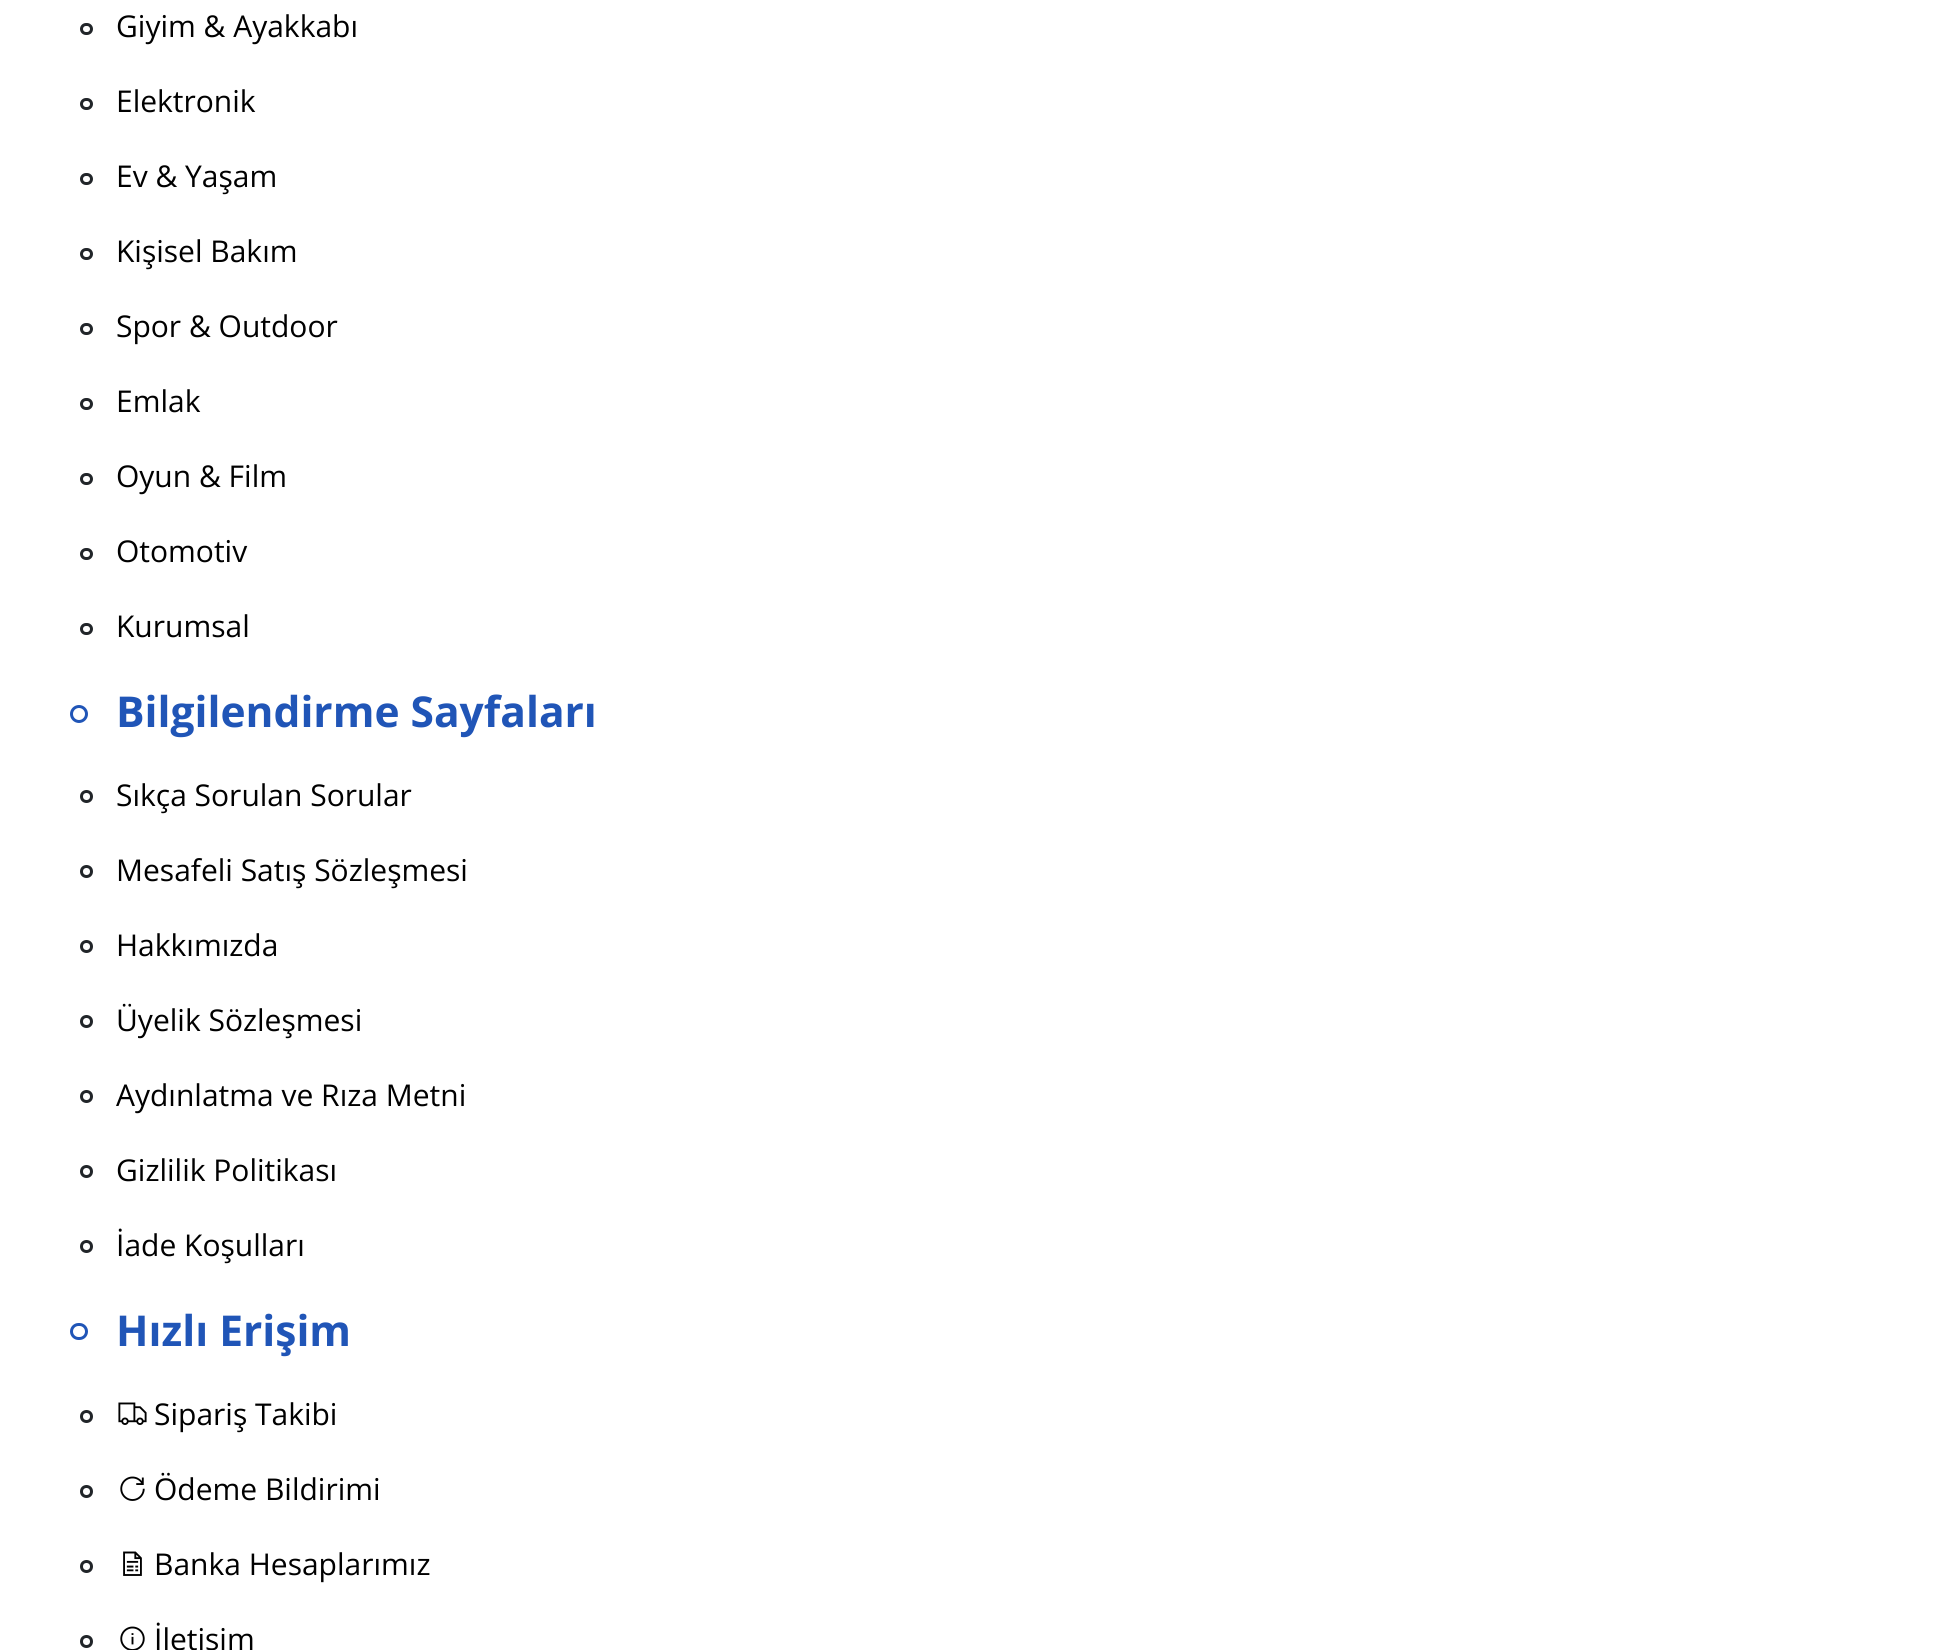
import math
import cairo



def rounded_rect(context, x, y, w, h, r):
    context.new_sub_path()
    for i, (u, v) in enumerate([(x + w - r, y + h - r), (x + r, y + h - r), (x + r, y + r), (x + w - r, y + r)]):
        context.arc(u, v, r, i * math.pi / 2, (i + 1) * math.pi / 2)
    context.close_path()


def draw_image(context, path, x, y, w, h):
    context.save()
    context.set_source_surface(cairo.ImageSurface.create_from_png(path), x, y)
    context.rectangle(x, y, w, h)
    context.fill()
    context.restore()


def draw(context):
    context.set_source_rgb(1, 1, 1)
    context.paint()
    rounded_rect(context, 81.5, 24.5, 10, 9, 4.5)
    context.set_source_rgb(33 / 255, 37 / 255, 41 / 255)
    context.set_line_width(3)
    context.stroke()
    rounded_rect(context, 81.5, 99.5, 10, 9, 4.5)
    context.stroke()
    rounded_rect(context, 81.5, 174.5, 10, 9, 4.5)
    context.stroke()
    rounded_rect(context, 81.5, 249.5, 10, 9, 4.5)
    context.stroke()
    rounded_rect(context, 81.5, 324.5, 10, 9, 4.5)
    context.stroke()
    rounded_rect(context, 81.5, 399.5, 10, 9, 4.5)
    context.stroke()
    rounded_rect(context, 81.5, 474.5, 10, 9, 4.5)
    context.stroke()
    rounded_rect(context, 81.5, 549.5, 10, 9, 4.5)
    context.stroke()
    rounded_rect(context, 81.5, 624.5, 10, 9, 4.5)
    context.stroke()
    context.arc(79, 714, 7.5, 0, 2 * math.pi)
    context.set_source_rgb(32 / 255, 85 / 255, 183 / 255)
    context.stroke()
    context.arc(86.5, 796.5, 5, 0, 2 * math.pi)
    context.set_source_rgb(33 / 255, 37 / 255, 41 / 255)
    context.stroke()
    context.arc(86.5, 871.5, 5, 0, 2 * math.pi)
    context.stroke()
    context.arc(86.5, 946.5, 5, 0, 2 * math.pi)
    context.stroke()
    context.arc(86.5, 1021.5, 5, 0, 2 * math.pi)
    context.stroke()
    context.arc(86.5, 1096.5, 5, 0, 2 * math.pi)
    context.stroke()
    context.arc(86.5, 1171.5, 5, 0, 2 * math.pi)
    context.stroke()
    context.arc(86.5, 1246.5, 5, 0, 2 * math.pi)
    context.stroke()
    rounded_rect(context, 71.5, 1324.5, 15, 14, 7)
    context.set_source_rgb(32 / 255, 85 / 255, 183 / 255)
    context.stroke()
    context.arc(86.5, 1416.5, 5, 0, 2 * math.pi)
    context.set_source_rgb(33 / 255, 37 / 255, 41 / 255)
    context.stroke()
    draw_image(context, "images/1.png", 118, 1402, 29, 23)
    context.arc(86.5, 1491.5, 5, 0, 2 * math.pi)
    context.stroke()
    draw_image(context, "images/2.png", 120, 1476, 25, 25)
    context.arc(86.5, 1566.5, 5, 0, 2 * math.pi)
    context.stroke()
    draw_image(context, "images/3.png", 123, 1551, 19, 25)
    context.arc(86.5, 1641.5, 5, 0, 2 * math.pi)
    context.stroke()
    draw_image(context, "images/4.png", 120, 1626, 25, 24)
    context.select_font_face("Open Sans")
    context.set_font_size(30)
    context.set_source_rgb(0, 0, 0)
    context.move_to(116, 37)
    context.show_text("Giyim & Ayakkabı")
    context.move_to(116, 112)
    context.show_text("Elektronik")
    context.move_to(116, 187)
    context.show_text("Ev & Yaşam")
    context.move_to(116, 262)
    context.show_text("Kişisel Bakım")
    context.move_to(116, 337)
    context.show_text("Spor & Outdoor")
    context.move_to(116, 412)
    context.show_text("Emlak")
    context.move_to(116, 487)
    context.show_text("Oyun & Film")
    context.move_to(116, 562)
    context.show_text("Otomotiv")
    context.move_to(116, 637)
    context.show_text("Kurumsal")
    context.select_font_face("Open Sans", cairo.FontSlant.NORMAL, cairo.FontWeight.BOLD)
    context.set_font_size(42.5)
    context.set_source_rgb(32 / 255, 85 / 255, 183 / 255)
    context.move_to(116, 727)
    context.show_text("Bilgilendirme Sayfaları")
    context.select_font_face("Open Sans")
    context.set_font_size(30)
    context.set_source_rgb(0, 0, 0)
    context.move_to(116, 806)
    context.show_text("Sıkça Sorulan Sorular")
    context.move_to(116, 881)
    context.show_text("Mesafeli Satış Sözleşmesi")
    context.move_to(116, 956)
    context.show_text("Hakkımızda")
    context.move_to(116, 1031)
    context.show_text("Üyelik Sözleşmesi")
    context.move_to(116, 1106)
    context.show_text("Aydınlatma ve Rıza Metni")
    context.move_to(116, 1181)
    context.show_text("Gizlilik Politikası")
    context.move_to(116, 1256)
    context.show_text("İade Koşulları")
    context.select_font_face("Open Sans", cairo.FontSlant.NORMAL, cairo.FontWeight.BOLD)
    context.set_font_size(42.5)
    context.set_source_rgb(32 / 255, 85 / 255, 183 / 255)
    context.move_to(116, 1346)
    context.show_text("Hızlı Erişim")
    context.select_font_face("Open Sans")
    context.set_font_size(30)
    context.set_source_rgb(0, 0, 0)
    context.move_to(154, 1425)
    context.show_text("Sipariş Takibi")
    context.move_to(154, 1500)
    context.show_text("Ödeme Bildirimi")
    context.move_to(154, 1575)
    context.show_text("Banka Hesaplarımız")
    context.move_to(154, 1650)
    context.show_text("İletişim")


surface = cairo.ImageSurface(cairo.Format.RGB24, 1956, 1650)
context = cairo.Context(surface)
options = cairo.FontOptions()
options.set_hint_metrics(cairo.HintMetrics.OFF)
options.set_hint_style(cairo.HintStyle.NONE)
context.set_font_options(options)
context.set_miter_limit(4)
draw(context)
surface.write_to_png("out.png")
